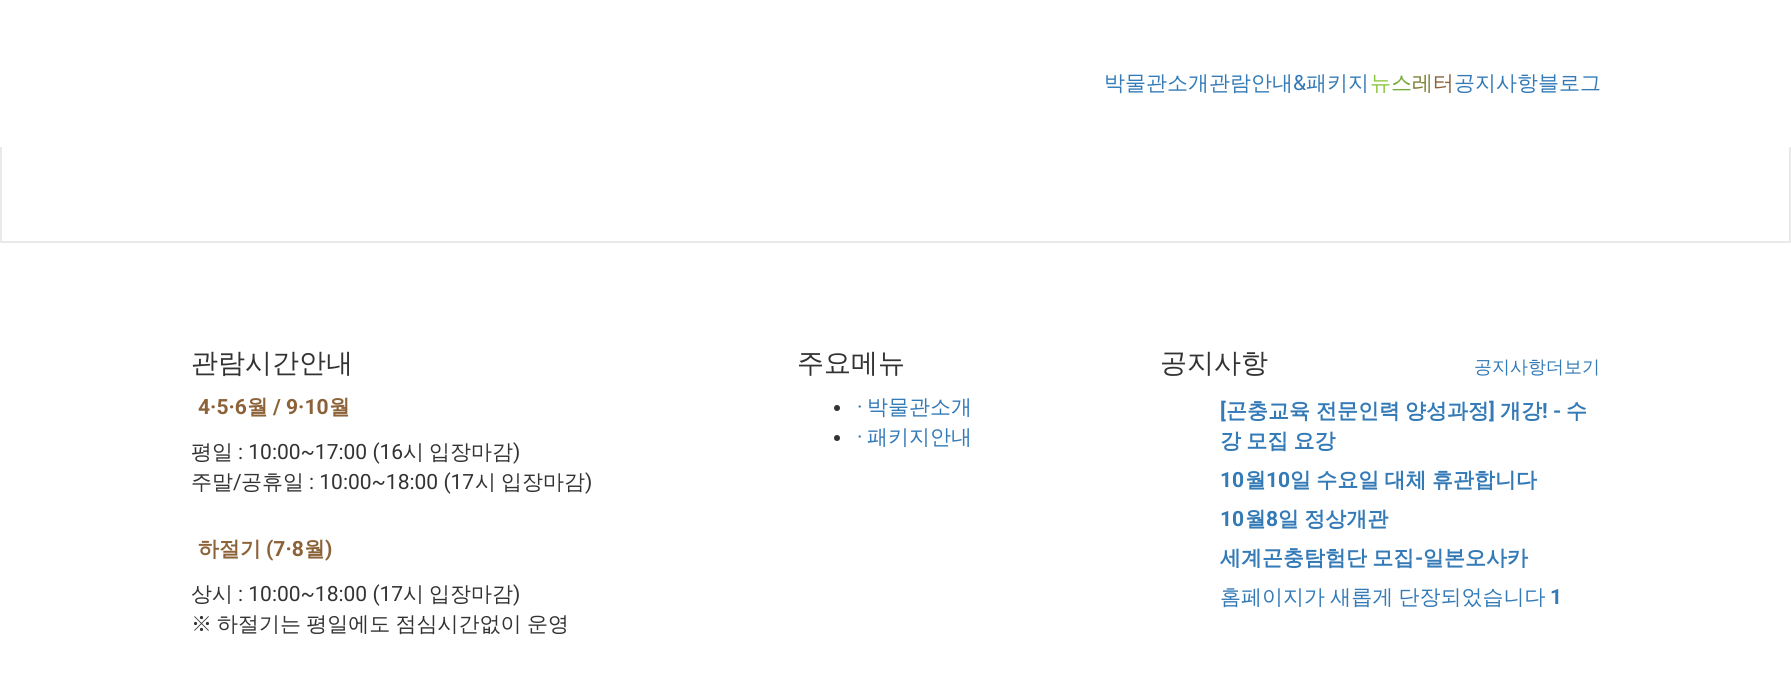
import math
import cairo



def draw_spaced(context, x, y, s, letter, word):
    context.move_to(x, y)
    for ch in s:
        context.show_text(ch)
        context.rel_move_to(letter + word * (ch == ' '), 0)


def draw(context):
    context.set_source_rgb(1, 1, 1)
    context.paint()
    context.rectangle(1, 16, 1789, 226)
    context.set_source_rgb(233 / 255, 233 / 255, 233 / 255)
    context.stroke()
    context.set_source_rgb(1, 1, 1)
    context.rectangle(0, 15, 1791, 132)
    context.fill()
    context.set_source_rgb(51 / 255, 51 / 255, 51 / 255)
    context.arc(837, 408, 3, 0, 2 * math.pi)
    context.fill()
    context.arc(837, 438, 3, 0, 2 * math.pi)
    context.fill()
    context.select_font_face("WenQuanYi Zen Hei Medium")
    context.set_font_size(21)
    context.set_source_rgb(51 / 255, 122 / 255, 183 / 255)
    context.move_to(1104, 90)
    context.show_text("박물관소개관람안내")
    context.select_font_face("Roboto")
    context.move_to(1293, 90)
    context.show_text("&")
    context.select_font_face("WenQuanYi Zen Hei Medium")
    context.move_to(1306, 90)
    context.show_text("패키지")
    context.set_source_rgb(140 / 255, 198 / 255, 63 / 255)
    context.move_to(1370, 90)
    context.show_text("뉴")
    context.set_source_rgb(120 / 255, 169 / 255, 54 / 255)
    context.move_to(1391, 90)
    context.show_text("스")
    context.set_source_rgb(126 / 255, 129 / 255, 53 / 255)
    context.move_to(1412, 90)
    context.show_text("레")
    context.set_source_rgb(140 / 255, 98 / 255, 57 / 255)
    context.move_to(1433, 90)
    context.show_text("터")
    context.set_source_rgb(51 / 255, 122 / 255, 183 / 255)
    context.move_to(1454, 90)
    context.show_text("공지사항블로그")
    context.set_font_size(27)
    context.set_source_rgb(51 / 255, 51 / 255, 51 / 255)
    context.move_to(191, 372)
    context.show_text("관람시간안내")
    context.select_font_face("Roboto", cairo.FontSlant.NORMAL, cairo.FontWeight.BOLD)
    context.set_font_size(21)
    context.set_source_rgb(140 / 255, 98 / 255, 57 / 255)
    context.move_to(198, 414)
    context.show_text("4·5·6")
    context.select_font_face("WenQuanYi Zen Hei", cairo.FontSlant.NORMAL, cairo.FontWeight.BOLD)
    context.move_to(247, 414)
    context.show_text("월")
    context.select_font_face("Roboto", cairo.FontSlant.NORMAL, cairo.FontWeight.BOLD)
    context.move_to(273, 414)
    context.show_text("/ 9·10")
    context.select_font_face("WenQuanYi Zen Hei", cairo.FontSlant.NORMAL, cairo.FontWeight.BOLD)
    context.move_to(329, 414)
    context.show_text("월")
    context.select_font_face("WenQuanYi Zen Hei Medium")
    context.set_source_rgb(51 / 255, 51 / 255, 51 / 255)
    context.move_to(191, 459)
    context.show_text("평일")
    context.select_font_face("Roboto")
    context.move_to(238, 459)
    context.show_text(": 10:00~17:00 (16")
    context.select_font_face("WenQuanYi Zen Hei Medium")
    context.move_to(403, 459)
    context.show_text("시")
    context.move_to(429, 459)
    context.show_text("입장마감")
    context.select_font_face("Roboto")
    context.move_to(513, 459)
    context.show_text(")")
    context.select_font_face("WenQuanYi Zen Hei Medium")
    context.move_to(191, 489)
    context.show_text("주말")
    context.select_font_face("Roboto")
    context.move_to(233, 489)
    context.show_text("/")
    context.select_font_face("WenQuanYi Zen Hei Medium")
    context.move_to(241, 489)
    context.show_text("공휴일")
    context.select_font_face("Roboto")
    context.move_to(309, 489)
    context.show_text(": 10:00~18:00 (17")
    context.select_font_face("WenQuanYi Zen Hei Medium")
    context.move_to(475, 489)
    context.show_text("시")
    context.move_to(501, 489)
    context.show_text("입장마감")
    context.select_font_face("Roboto")
    context.move_to(585, 489)
    context.show_text(")")
    context.select_font_face("WenQuanYi Zen Hei", cairo.FontSlant.NORMAL, cairo.FontWeight.BOLD)
    context.set_source_rgb(140 / 255, 98 / 255, 57 / 255)
    context.move_to(198, 556)
    context.show_text("하절기")
    context.select_font_face("Roboto", cairo.FontSlant.NORMAL, cairo.FontWeight.BOLD)
    context.move_to(266, 556)
    context.show_text("(7·8")
    context.select_font_face("WenQuanYi Zen Hei", cairo.FontSlant.NORMAL, cairo.FontWeight.BOLD)
    context.move_to(304, 556)
    context.show_text("월")
    context.select_font_face("Roboto", cairo.FontSlant.NORMAL, cairo.FontWeight.BOLD)
    context.move_to(325, 556)
    context.show_text(")")
    context.select_font_face("WenQuanYi Zen Hei Medium")
    context.set_source_rgb(51 / 255, 51 / 255, 51 / 255)
    context.move_to(191, 601)
    context.show_text("상시")
    context.select_font_face("Roboto")
    context.move_to(238, 601)
    context.show_text(": 10:00~18:00 (17")
    context.select_font_face("WenQuanYi Zen Hei Medium")
    context.move_to(403, 601)
    context.show_text("시")
    context.move_to(429, 601)
    context.show_text("입장마감")
    context.select_font_face("Roboto")
    context.move_to(513, 601)
    context.show_text(")")
    context.select_font_face("WenQuanYi Zen Hei Medium")
    context.move_to(191, 631)
    context.show_text("※")
    draw_spaced(context, 217, 631, "하절기는 평일에도 점심시간없이 운영", 0, -1)
    context.set_font_size(27)
    context.move_to(797, 372)
    context.show_text("주요메뉴")
    context.select_font_face("Roboto")
    context.set_font_size(21)
    context.set_source_rgb(51 / 255, 122 / 255, 183 / 255)
    context.move_to(857, 414)
    context.show_text("·")
    context.select_font_face("WenQuanYi Zen Hei Medium")
    context.move_to(867, 414)
    context.show_text("박물관소개")
    context.select_font_face("Roboto")
    context.move_to(857, 444)
    context.show_text("·")
    context.select_font_face("WenQuanYi Zen Hei Medium")
    context.move_to(867, 444)
    context.show_text("패키지안내")
    context.set_font_size(27)
    context.set_source_rgb(51 / 255, 51 / 255, 51 / 255)
    context.move_to(1160, 372)
    context.show_text("공지사항")
    context.set_font_size(18)
    context.set_source_rgb(51 / 255, 122 / 255, 183 / 255)
    context.move_to(1474, 373)
    context.show_text("공지사항더보기")
    context.select_font_face("Roboto", cairo.FontSlant.NORMAL, cairo.FontWeight.BOLD)
    context.set_font_size(21)
    context.move_to(1220, 418)
    context.show_text("[")
    context.select_font_face("WenQuanYi Zen Hei", cairo.FontSlant.NORMAL, cairo.FontWeight.BOLD)
    context.move_to(1226, 418)
    context.show_text("곤충교육")
    context.move_to(1316, 418)
    context.show_text("전문인력")
    context.move_to(1405, 418)
    context.show_text("양성과정")
    context.select_font_face("Roboto", cairo.FontSlant.NORMAL, cairo.FontWeight.BOLD)
    context.move_to(1489, 418)
    context.show_text("]")
    context.select_font_face("WenQuanYi Zen Hei", cairo.FontSlant.NORMAL, cairo.FontWeight.BOLD)
    context.move_to(1500, 418)
    context.show_text("개강")
    context.select_font_face("Roboto", cairo.FontSlant.NORMAL, cairo.FontWeight.BOLD)
    context.move_to(1542, 418)
    context.show_text("! -")
    context.select_font_face("WenQuanYi Zen Hei", cairo.FontSlant.NORMAL, cairo.FontWeight.BOLD)
    context.move_to(1566, 418)
    context.show_text("수")
    draw_spaced(context, 1220, 448, "강 모집 요강", 0, -1)
    context.select_font_face("Roboto", cairo.FontSlant.NORMAL, cairo.FontWeight.BOLD)
    context.move_to(1220, 487)
    context.show_text("10")
    context.select_font_face("WenQuanYi Zen Hei", cairo.FontSlant.NORMAL, cairo.FontWeight.BOLD)
    context.move_to(1245, 487)
    context.show_text("월")
    context.select_font_face("Roboto", cairo.FontSlant.NORMAL, cairo.FontWeight.BOLD)
    context.move_to(1266, 487)
    context.show_text("10")
    context.select_font_face("WenQuanYi Zen Hei", cairo.FontSlant.NORMAL, cairo.FontWeight.BOLD)
    draw_spaced(context, 1290, 487, "일 수요일 대체 휴관합니다", 0, -1)
    context.select_font_face("Roboto", cairo.FontSlant.NORMAL, cairo.FontWeight.BOLD)
    context.move_to(1220, 526)
    context.show_text("10")
    context.select_font_face("WenQuanYi Zen Hei", cairo.FontSlant.NORMAL, cairo.FontWeight.BOLD)
    context.move_to(1245, 526)
    context.show_text("월")
    context.select_font_face("Roboto", cairo.FontSlant.NORMAL, cairo.FontWeight.BOLD)
    context.move_to(1266, 526)
    context.show_text("8")
    context.select_font_face("WenQuanYi Zen Hei", cairo.FontSlant.NORMAL, cairo.FontWeight.BOLD)
    draw_spaced(context, 1278, 526, "일 정상개관", 0, -1)
    draw_spaced(context, 1220, 565, "세계곤충탐험단 모집", 0, -1)
    context.select_font_face("Roboto", cairo.FontSlant.NORMAL, cairo.FontWeight.BOLD)
    context.move_to(1415, 565)
    context.show_text("-")
    context.select_font_face("WenQuanYi Zen Hei", cairo.FontSlant.NORMAL, cairo.FontWeight.BOLD)
    context.move_to(1423, 565)
    context.show_text("일본오사카")
    context.select_font_face("WenQuanYi Zen Hei Medium")
    draw_spaced(context, 1220, 604, "홈페이지가 새롭게 단장되었습니다", 0, -1)
    context.select_font_face("Roboto", cairo.FontSlant.NORMAL, cairo.FontWeight.BOLD)
    context.move_to(1550, 604)
    context.show_text("1")


surface = cairo.ImageSurface(cairo.Format.RGB24, 1791, 675)
context = cairo.Context(surface)
options = cairo.FontOptions()
options.set_hint_metrics(cairo.HintMetrics.OFF)
options.set_hint_style(cairo.HintStyle.NONE)
context.set_font_options(options)
context.set_miter_limit(4)
draw(context)
surface.write_to_png("out.png")
